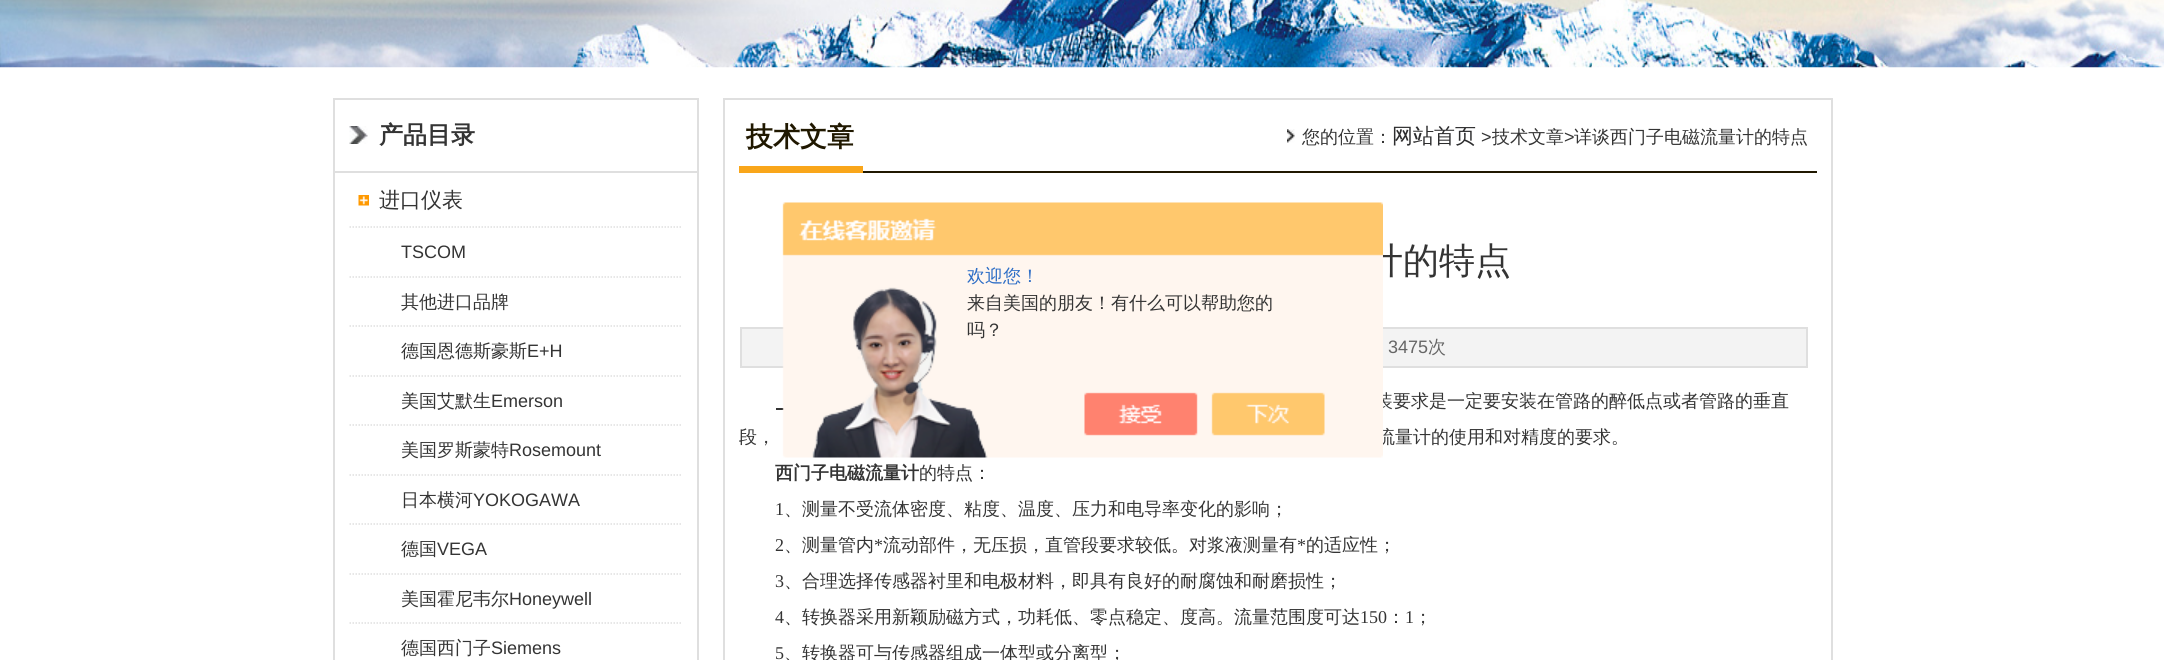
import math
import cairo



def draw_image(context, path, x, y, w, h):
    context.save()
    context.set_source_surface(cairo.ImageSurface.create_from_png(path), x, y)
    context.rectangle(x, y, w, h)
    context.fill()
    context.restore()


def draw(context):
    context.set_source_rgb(1, 1, 1)
    context.paint()
    draw_image(context, "images/1.png", 0, 0, 2164, 68)
    context.rectangle(334, 99, 364, 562)
    context.set_source_rgb(223 / 255, 223 / 255, 223 / 255)
    context.stroke()
    draw_image(context, "images/2.png", 349, 126, 19, 18)
    context.rectangle(335, 171, 363, 2)
    context.fill()
    draw_image(context, "images/3.png", 358, 195, 11, 11)
    context.new_path()
    context.move_to(349.5, 227)
    context.line_to(682.5, 227)
    context.set_line_width(1.5)
    context.set_dash([1.5, 1.5])
    context.stroke()
    context.new_path()
    context.move_to(349.5, 277)
    context.line_to(682.5, 277)
    context.stroke()
    context.new_path()
    context.move_to(349.5, 326)
    context.line_to(682.5, 326)
    context.stroke()
    context.new_path()
    context.move_to(349.5, 376)
    context.line_to(682.5, 376)
    context.stroke()
    context.new_path()
    context.move_to(349.5, 425)
    context.line_to(682.5, 425)
    context.stroke()
    context.new_path()
    context.move_to(349.5, 475)
    context.line_to(682.5, 475)
    context.stroke()
    context.new_path()
    context.move_to(349.5, 524)
    context.line_to(682.5, 524)
    context.stroke()
    context.new_path()
    context.move_to(349.5, 574)
    context.line_to(682.5, 574)
    context.stroke()
    context.new_path()
    context.move_to(349.5, 623)
    context.line_to(682.5, 623)
    context.stroke()
    context.rectangle(724, 99, 1108, 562)
    context.set_line_width(2)
    context.set_dash([])
    context.stroke()
    context.set_source_rgb(32 / 255, 24 / 255, 0)
    context.rectangle(863, 171, 954, 2)
    context.fill()
    context.set_source_rgb(249 / 255, 166 / 255, 26 / 255)
    context.rectangle(739, 166, 124, 7)
    context.fill()
    draw_image(context, "images/4.png", 1287, 129, 8, 14)
    context.set_source_rgb(243 / 255, 243 / 255, 243 / 255)
    context.rectangle(741, 328, 1066, 39)
    context.fill_preserve()
    context.set_source_rgb(223 / 255, 223 / 255, 223 / 255)
    context.stroke()
    context.set_source_rgb(51 / 255, 51 / 255, 51 / 255)
    context.rectangle(776, 408, 8, 2)
    context.fill()
    context.select_font_face("WenQuanYi Zen Hei", cairo.FontSlant.NORMAL, cairo.FontWeight.BOLD)
    context.set_font_size(24)
    context.set_source_rgb(52 / 255, 52 / 255, 52 / 255)
    context.move_to(379, 143)
    context.show_text("产品目录")
    context.select_font_face("WenQuanYi Zen Hei Medium")
    context.set_font_size(21)
    context.move_to(379, 207)
    context.show_text("进口仪表")
    context.select_font_face("Liberation Sans")
    context.set_font_size(18)
    context.move_to(401, 258)
    context.show_text("TSCOM")
    context.select_font_face("WenQuanYi Zen Hei Medium")
    context.move_to(401, 308)
    context.show_text("其他进口品牌")
    context.move_to(401, 357)
    context.show_text("德国恩德斯豪斯")
    context.select_font_face("Liberation Sans")
    context.move_to(527, 357)
    context.show_text("E+H")
    context.select_font_face("WenQuanYi Zen Hei Medium")
    context.move_to(401, 407)
    context.show_text("美国艾默生")
    context.select_font_face("Liberation Sans")
    context.move_to(491, 407)
    context.show_text("Emerson")
    context.select_font_face("WenQuanYi Zen Hei Medium")
    context.move_to(401, 456)
    context.show_text("美国罗斯蒙特")
    context.select_font_face("Liberation Sans")
    context.move_to(509, 456)
    context.show_text("Rosemount")
    context.select_font_face("WenQuanYi Zen Hei Medium")
    context.move_to(401, 506)
    context.show_text("日本横河")
    context.select_font_face("Liberation Sans")
    context.move_to(473, 506)
    context.show_text("YOKOGAWA")
    context.select_font_face("WenQuanYi Zen Hei Medium")
    context.move_to(401, 555)
    context.show_text("德国")
    context.select_font_face("Liberation Sans")
    context.move_to(437, 555)
    context.show_text("VEGA")
    context.select_font_face("WenQuanYi Zen Hei Medium")
    context.move_to(401, 605)
    context.show_text("美国霍尼韦尔")
    context.select_font_face("Liberation Sans")
    context.move_to(509, 605)
    context.show_text("Honeywell")
    context.select_font_face("WenQuanYi Zen Hei Medium")
    context.move_to(401, 654)
    context.show_text("德国西门子")
    context.select_font_face("Liberation Sans")
    context.move_to(491, 654)
    context.show_text("Siemens")
    context.select_font_face("WenQuanYi Zen Hei", cairo.FontSlant.NORMAL, cairo.FontWeight.BOLD)
    context.set_font_size(27)
    context.set_source_rgb(32 / 255, 24 / 255, 0)
    context.move_to(746, 146)
    context.show_text("技术文章")
    context.select_font_face("WenQuanYi Zen Hei Medium")
    context.set_font_size(18)
    context.set_source_rgb(52 / 255, 52 / 255, 52 / 255)
    context.move_to(1302, 143)
    context.show_text("您的位置：")
    context.set_font_size(21)
    context.set_source_rgb(45 / 255, 45 / 255, 46 / 255)
    context.move_to(1392, 143)
    context.show_text("网站首页")
    context.select_font_face("Liberation Sans")
    context.set_font_size(18)
    context.set_source_rgb(52 / 255, 52 / 255, 52 / 255)
    context.move_to(1481, 143)
    context.show_text(">")
    context.select_font_face("WenQuanYi Zen Hei Medium")
    context.move_to(1492, 143)
    context.show_text("技术文章")
    context.select_font_face("Liberation Sans")
    context.move_to(1564, 143)
    context.show_text(">")
    context.select_font_face("WenQuanYi Zen Hei Medium")
    context.move_to(1574, 143)
    context.show_text("详谈西门子电磁流量计的特点")
    context.set_font_size(36)
    context.move_to(1367, 273)
    context.show_text("计的特点")
    context.select_font_face("Liberation Sans")
    context.set_font_size(18)
    context.set_source_rgb(102 / 255, 102 / 255, 102 / 255)
    context.move_to(1388, 353)
    context.show_text("3475")
    context.select_font_face("WenQuanYi Zen Hei Medium")
    context.move_to(1428, 353)
    context.show_text("次")
    context.set_source_rgb(52 / 255, 52 / 255, 52 / 255)
    context.move_to(1375, 407)
    context.show_text("装要求是一定要安装在管路的醉低点或者管路的垂直")
    context.move_to(739, 443)
    context.show_text("段，")
    context.move_to(1377, 443)
    context.show_text("流量计的使用和对精度的要求。")
    context.select_font_face("WenQuanYi Zen Hei", cairo.FontSlant.NORMAL, cairo.FontWeight.BOLD)
    context.move_to(775, 479)
    context.show_text("西门子电磁流量计")
    context.select_font_face("WenQuanYi Zen Hei Medium")
    context.move_to(919, 479)
    context.show_text("的特点：")
    context.select_font_face("Liberation Serif")
    context.move_to(775, 515)
    context.show_text("1")
    context.select_font_face("WenQuanYi Zen Hei Medium")
    context.move_to(784, 515)
    context.show_text("、测量不受流体密度、粘度、温度、压力和电导率变化的影响；")
    context.select_font_face("Liberation Serif")
    context.move_to(775, 551)
    context.show_text("2")
    context.select_font_face("WenQuanYi Zen Hei Medium")
    context.move_to(784, 551)
    context.show_text("、测量管内")
    context.select_font_face("Liberation Serif")
    context.move_to(874, 551)
    context.show_text("*")
    context.select_font_face("WenQuanYi Zen Hei Medium")
    context.move_to(883, 551)
    context.show_text("流动部件，无压损，直管段要求较低。对浆液测量有")
    context.select_font_face("Liberation Serif")
    context.move_to(1297, 551)
    context.show_text("*")
    context.select_font_face("WenQuanYi Zen Hei Medium")
    context.move_to(1306, 551)
    context.show_text("的适应性；")
    context.select_font_face("Liberation Serif")
    context.move_to(775, 587)
    context.show_text("3")
    context.select_font_face("WenQuanYi Zen Hei Medium")
    context.move_to(784, 587)
    context.show_text("、合理选择传感器衬里和电极材料，即具有良好的耐腐蚀和耐磨损性；")
    context.select_font_face("Liberation Serif")
    context.move_to(775, 623)
    context.show_text("4")
    context.select_font_face("WenQuanYi Zen Hei Medium")
    context.move_to(784, 623)
    context.show_text("、转换器采用新颖励磁方式，功耗低、零点稳定、度高。流量范围度可达")
    context.select_font_face("Liberation Serif")
    context.move_to(1360, 623)
    context.show_text("150")
    context.select_font_face("WenQuanYi Zen Hei Medium")
    context.move_to(1387, 623)
    context.show_text("：")
    context.select_font_face("Liberation Serif")
    context.move_to(1405, 623)
    context.show_text("1")
    context.select_font_face("WenQuanYi Zen Hei Medium")
    context.move_to(1414, 623)
    context.show_text("；")
    context.select_font_face("Liberation Serif")
    context.move_to(775, 659)
    context.show_text("5")
    context.select_font_face("WenQuanYi Zen Hei Medium")
    context.move_to(784, 659)
    context.show_text("、转换器可与传感器组成一体型或分离型；")
    draw_image(context, "images/5.png", 782, 202, 601, 256)
    context.set_source_rgb(46 / 255, 110 / 255, 198 / 255)
    context.move_to(967, 282)
    context.show_text("欢迎您！")
    context.set_source_rgb(52 / 255, 52 / 255, 52 / 255)
    context.move_to(967, 309)
    context.show_text("来自美国的朋友！有什么可以帮助您的")
    context.move_to(967, 336)
    context.show_text("吗？")


surface = cairo.ImageSurface(cairo.Format.RGB24, 2164, 660)
context = cairo.Context(surface)
options = cairo.FontOptions()
options.set_hint_metrics(cairo.HintMetrics.OFF)
options.set_hint_style(cairo.HintStyle.NONE)
context.set_font_options(options)
context.set_miter_limit(4)
draw(context)
surface.write_to_png("out.png")
